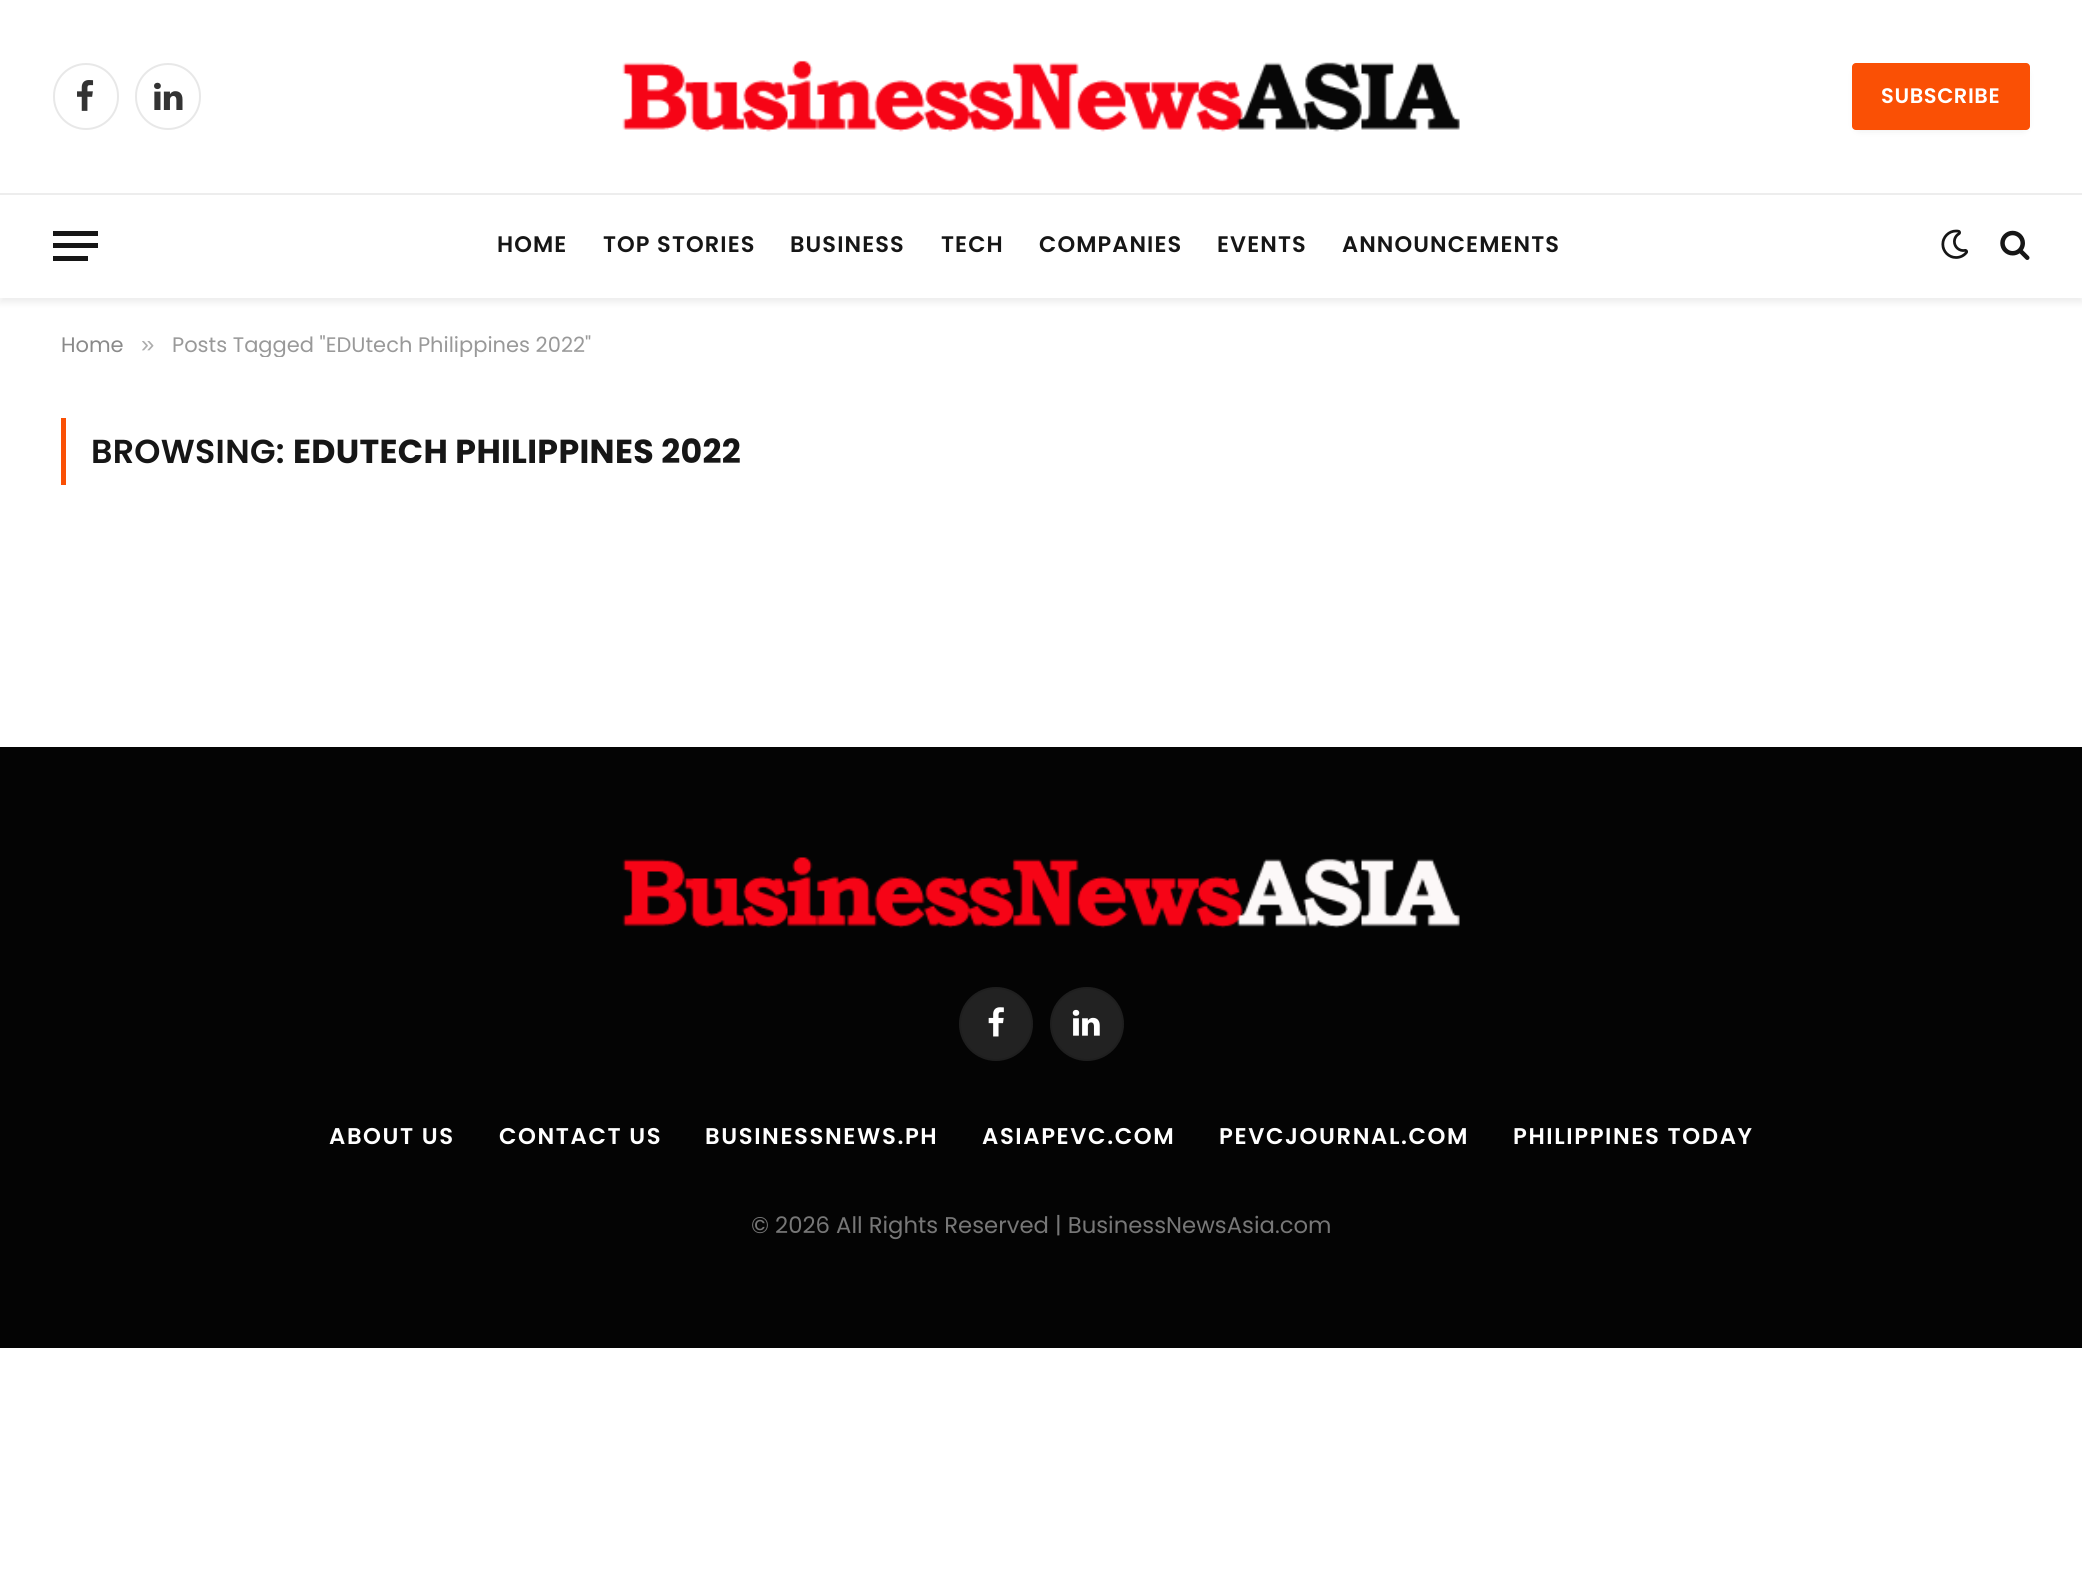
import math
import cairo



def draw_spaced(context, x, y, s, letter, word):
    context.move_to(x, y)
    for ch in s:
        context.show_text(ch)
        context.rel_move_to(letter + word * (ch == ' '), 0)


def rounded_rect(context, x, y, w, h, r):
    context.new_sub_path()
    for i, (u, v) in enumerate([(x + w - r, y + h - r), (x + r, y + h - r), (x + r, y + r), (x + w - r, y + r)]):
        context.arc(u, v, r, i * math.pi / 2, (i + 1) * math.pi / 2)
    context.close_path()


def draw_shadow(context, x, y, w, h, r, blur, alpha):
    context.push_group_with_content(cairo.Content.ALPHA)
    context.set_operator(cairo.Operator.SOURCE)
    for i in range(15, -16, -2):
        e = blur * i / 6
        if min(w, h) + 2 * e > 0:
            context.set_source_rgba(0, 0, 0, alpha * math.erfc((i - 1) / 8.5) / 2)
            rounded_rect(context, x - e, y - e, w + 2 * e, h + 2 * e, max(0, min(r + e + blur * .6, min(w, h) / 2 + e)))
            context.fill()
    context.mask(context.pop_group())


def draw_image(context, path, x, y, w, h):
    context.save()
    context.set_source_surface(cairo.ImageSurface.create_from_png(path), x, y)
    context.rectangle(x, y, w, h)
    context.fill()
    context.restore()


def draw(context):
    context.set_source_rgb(1, 1, 1)
    context.paint()
    context.save()
    context.set_fill_rule(cairo.FillRule.EVEN_ODD)
    context.new_path()
    context.move_to(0, 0)
    context.line_to(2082, 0)
    context.line_to(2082, 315)
    context.line_to(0, 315)
    context.close_path()
    context.move_to(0, 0)
    context.line_to(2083, 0)
    context.line_to(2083, 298)
    context.line_to(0, 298)
    context.close_path()
    context.clip()
    context.set_source_rgb(0, 0, 0)
    draw_shadow(context, 0, 5, 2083, 298, 0, 3.5, 0.07)
    context.restore()
    rounded_rect(context, 54, 64, 64, 65, 32)
    context.set_source_rgb(232 / 255, 232 / 255, 232 / 255)
    context.stroke()
    draw_image(context, "images/1.png", 77, 80, 17, 31)
    rounded_rect(context, 136, 64, 64, 65, 32)
    context.stroke()
    draw_image(context, "images/2.png", 154, 82, 29, 28)
    draw_image(context, "images/3.png", 622, 60, 838, 72)
    context.set_source_rgb(0, 0, 0)
    draw_shadow(context, 1859, 74, 164, 52, 0, 6, 0.16)
    context.set_source_rgb(250 / 255, 80 / 255, 5 / 255)
    rounded_rect(context, 1852, 63, 178, 67, 4)
    context.fill()
    context.set_source_rgb(237 / 255, 237 / 255, 237 / 255)
    context.rectangle(0, 193, 2082, 2)
    context.fill()
    context.set_source_rgb(22 / 255, 22 / 255, 22 / 255)
    context.rectangle(53, 256, 35, 5)
    context.fill()
    context.rectangle(53, 231, 45, 5)
    context.fill()
    context.rectangle(53, 243, 45, 5)
    context.fill()
    draw_image(context, "images/4.png", 1941, 229, 27, 30)
    draw_image(context, "images/5.png", 2000, 230, 30, 30)
    context.set_source_rgb(250 / 255, 80 / 255, 5 / 255)
    context.rectangle(61, 418, 5, 67)
    context.fill()
    context.set_source_rgb(4 / 255, 4 / 255, 4 / 255)
    context.rectangle(0, 747, 2082, 601)
    context.fill()
    draw_image(context, "images/6.png", 622, 857, 838, 71)
    context.set_source_rgb(34 / 255, 34 / 255, 34 / 255)
    context.arc(996, 1024, 37, 0, 2 * math.pi)
    context.fill()
    context.arc(996, 1024, 36, 0, 2 * math.pi)
    context.set_source_rgba(0, 0, 0, 0.09)
    context.stroke()
    draw_image(context, "images/7.png", 988, 1007, 16, 30)
    context.set_source_rgb(34 / 255, 34 / 255, 34 / 255)
    context.arc(1087, 1024, 37, 0, 2 * math.pi)
    context.fill()
    context.arc(1087, 1024, 36, 0, 2 * math.pi)
    context.set_source_rgba(0, 0, 0, 0.09)
    context.stroke()
    draw_image(context, "images/8.png", 1072, 1009, 28, 27)
    context.select_font_face("Poppins SemiBold")
    context.set_font_size(21)
    context.set_source_rgb(1, 1, 1)
    draw_spaced(context, 1881, 103, "SUBSCRIBE", 0.6, 0)
    context.set_font_size(22.5)
    context.set_source_rgb(22 / 255, 22 / 255, 22 / 255)
    draw_spaced(context, 497, 252, "HOME", 1.1, 0)
    draw_spaced(context, 603, 252, "TOP STORIES", 1.1, 0)
    draw_spaced(context, 790, 252, "BUSINESS", 1.1, 0)
    draw_spaced(context, 941, 252, "TECH", 1.1, 0)
    draw_spaced(context, 1039, 252, "COMPANIES", 1.1, 0)
    draw_spaced(context, 1217, 252, "EVENTS", 1.1, 0)
    draw_spaced(context, 1342, 252, "ANNOUNCEMENTS", 1.1, 0)
    context.select_font_face("Poppins")
    context.set_font_size(21)
    context.set_source_rgb(138 / 255, 138 / 255, 138 / 255)
    context.move_to(61, 352)
    context.show_text("Home")
    context.select_font_face("Liberation Sans")
    context.set_font_size(24)
    context.set_source_rgb(173 / 255, 173 / 255, 173 / 255)
    context.move_to(141, 352)
    context.show_text("»")
    context.save()
    context.rectangle(0, 333, 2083, 24)
    context.clip()
    context.select_font_face("Poppins")
    context.set_font_size(21)
    context.set_source_rgb(153 / 255, 153 / 255, 153 / 255)
    context.move_to(172, 352)
    context.show_text("Posts Tagged \"EDUtech Philippines 2022\"")
    context.restore()
    context.select_font_face("Poppins SemiBold")
    context.set_font_size(33.25)
    context.set_source_rgb(22 / 255, 22 / 255, 22 / 255)
    draw_spaced(context, 91, 463, "BROWSING:", 0.3, 0)
    context.select_font_face("Poppins", cairo.FontSlant.NORMAL, cairo.FontWeight.BOLD)
    draw_spaced(context, 293, 463, "EDUTECH PHILIPPINES 2022", 0.3, 0)
    context.select_font_face("Poppins SemiBold")
    context.set_font_size(22.75)
    context.set_source_rgb(1, 1, 1)
    draw_spaced(context, 329, 1144, "ABOUT US", 1.6, 0)
    draw_spaced(context, 499, 1144, "CONTACT US", 1.6, 0)
    draw_spaced(context, 705, 1144, "BUSINESSNEWS.PH", 1.6, 0)
    draw_spaced(context, 982, 1144, "ASIAPEVC.COM", 1.6, 0)
    draw_spaced(context, 1219, 1144, "PEVCJOURNAL.COM", 1.6, 0)
    draw_spaced(context, 1513, 1144, "PHILIPPINES TODAY", 1.6, 0)
    context.select_font_face("Poppins")
    context.set_source_rgb(119 / 255, 119 / 255, 119 / 255)
    context.move_to(751, 1233)
    context.show_text("© 2026 All Rights Reserved | BusinessNewsAsia.com")


surface = cairo.ImageSurface(cairo.Format.RGB24, 2082, 1576)
context = cairo.Context(surface)
options = cairo.FontOptions()
options.set_hint_metrics(cairo.HintMetrics.OFF)
options.set_hint_style(cairo.HintStyle.NONE)
context.set_font_options(options)
context.set_miter_limit(4)
draw(context)
surface.write_to_png("out.png")
